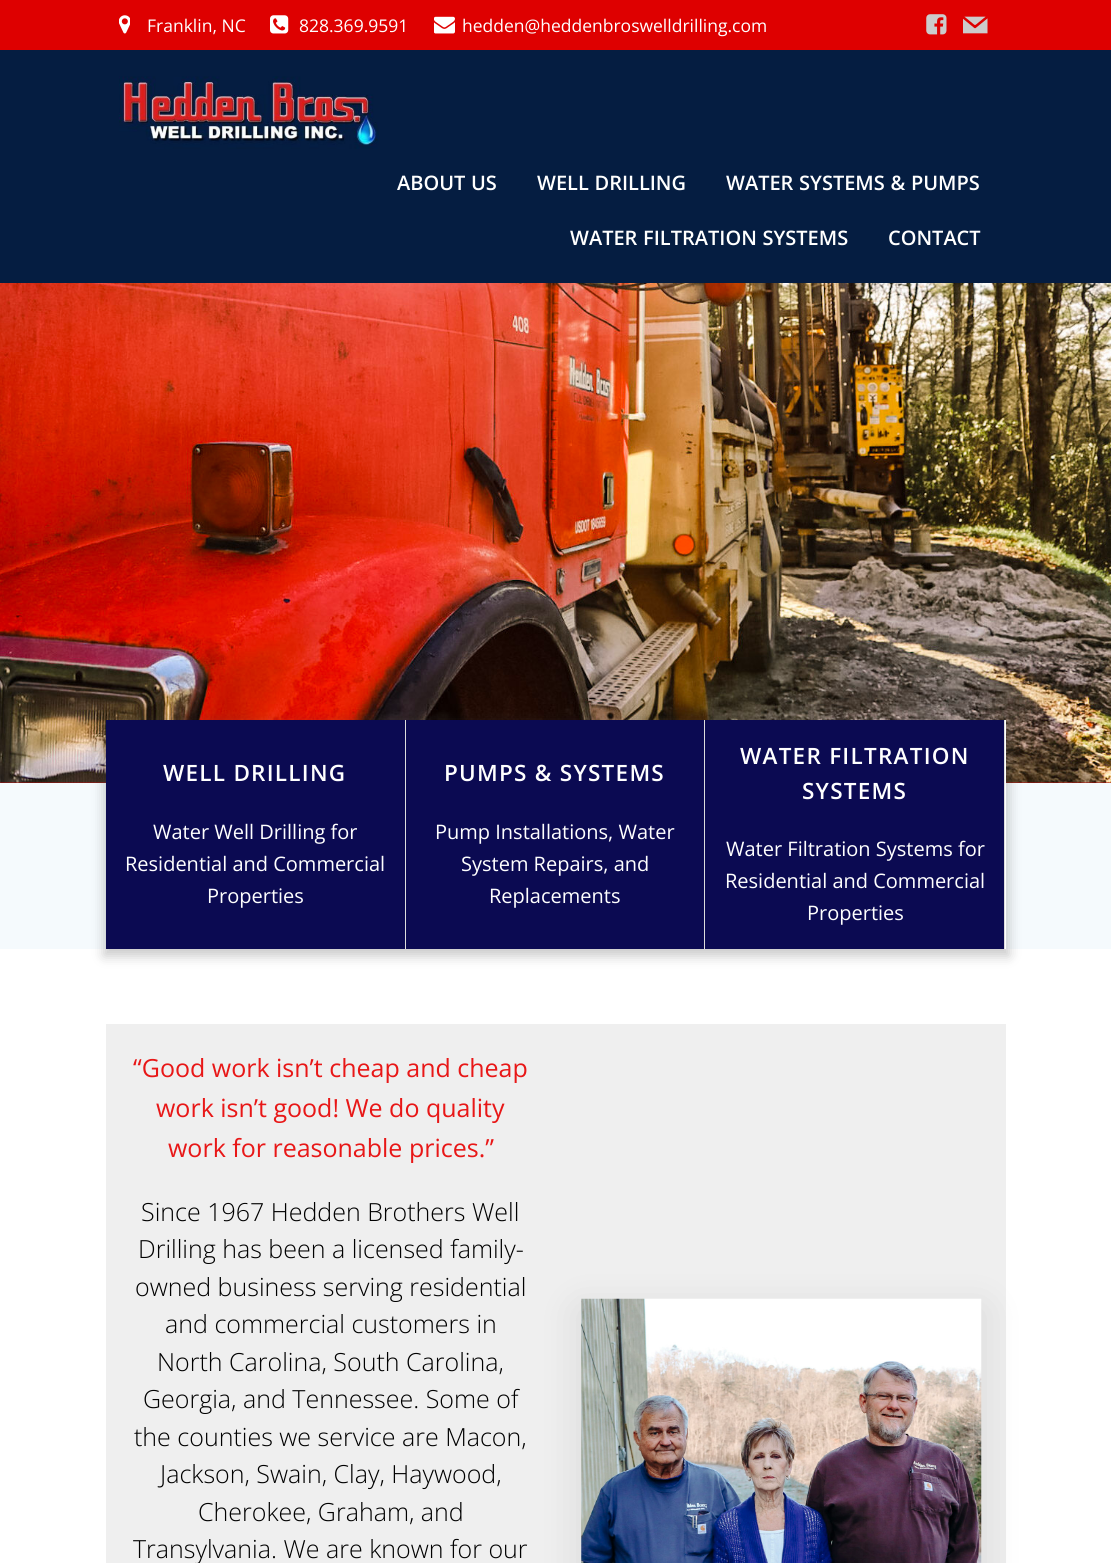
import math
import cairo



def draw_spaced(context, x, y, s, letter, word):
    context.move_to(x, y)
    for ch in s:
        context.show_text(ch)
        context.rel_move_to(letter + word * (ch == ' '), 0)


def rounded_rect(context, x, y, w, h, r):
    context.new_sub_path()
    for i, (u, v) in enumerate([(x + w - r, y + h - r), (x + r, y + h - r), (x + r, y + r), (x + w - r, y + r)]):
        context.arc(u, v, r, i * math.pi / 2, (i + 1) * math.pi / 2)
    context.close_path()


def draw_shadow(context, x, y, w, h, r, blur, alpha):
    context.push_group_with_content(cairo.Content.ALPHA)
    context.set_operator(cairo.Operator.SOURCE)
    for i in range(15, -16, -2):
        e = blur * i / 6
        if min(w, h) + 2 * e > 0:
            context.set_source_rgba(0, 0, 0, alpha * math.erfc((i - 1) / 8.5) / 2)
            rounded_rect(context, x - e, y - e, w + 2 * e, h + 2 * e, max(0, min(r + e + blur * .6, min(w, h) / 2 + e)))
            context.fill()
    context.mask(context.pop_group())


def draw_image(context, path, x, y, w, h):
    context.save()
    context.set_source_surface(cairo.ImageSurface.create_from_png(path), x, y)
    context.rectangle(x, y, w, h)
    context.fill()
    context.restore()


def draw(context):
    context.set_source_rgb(1, 1, 1)
    context.paint()
    context.set_source_rgb(175 / 255, 16 / 255, 16 / 255)
    context.rectangle(0, 782, 1111, 1)
    context.fill()
    context.set_source_rgb(222 / 255, 0, 0)
    context.rectangle(0, 0, 1111, 50)
    context.fill()
    draw_image(context, "images/1.png", 119, 15, 11, 19)
    draw_image(context, "images/2.png", 270, 15, 19, 19)
    draw_image(context, "images/3.png", 434, 16, 21, 18)
    draw_image(context, "images/4.png", 926, 14, 21, 21)
    draw_image(context, "images/5.png", 963, 16, 25, 18)
    context.set_source_rgb(5 / 255, 29 / 255, 65 / 255)
    context.rectangle(0, 50, 1111, 233)
    context.fill()
    draw_image(context, "images/6.png", 119, 76, 260, 73)
    draw_image(context, "images/7.png", 0, 283, 1111, 500)
    context.set_source_rgb(245 / 255, 250 / 255, 253 / 255)
    context.rectangle(0, 783, 1111, 166)
    context.fill()
    context.set_source_rgb(74 / 255, 74 / 255, 74 / 255)
    draw_shadow(context, 104, 723, 905, 233, 0, 6, 0.3)
    context.set_source_rgb(1, 1, 1)
    context.rectangle(1005, 720, 1, 229)
    context.fill()
    context.set_source_rgb(11 / 255, 10 / 255, 82 / 255)
    context.rectangle(106, 720, 299, 229)
    context.fill()
    context.set_source_rgb(221 / 255, 221 / 255, 221 / 255)
    context.rectangle(405, 720, 1, 229)
    context.fill()
    context.set_source_rgb(11 / 255, 10 / 255, 82 / 255)
    context.rectangle(406, 720, 298, 229)
    context.fill()
    context.set_source_rgb(221 / 255, 221 / 255, 221 / 255)
    context.rectangle(704, 720, 1, 229)
    context.fill()
    context.set_source_rgb(11 / 255, 10 / 255, 82 / 255)
    context.rectangle(705, 720, 299, 229)
    context.fill()
    context.set_source_rgb(221 / 255, 221 / 255, 221 / 255)
    context.rectangle(1004, 720, 1, 229)
    context.fill()
    context.set_source_rgb(239 / 255, 239 / 255, 239 / 255)
    context.rectangle(106, 1024, 900, 539)
    context.fill()
    context.set_source_rgb(0, 0, 0)
    draw_shadow(context, 579, 1309, 405, 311, 0, 19, 0.1)
    draw_image(context, "images/8.png", 581, 1298, 401, 265)
    context.select_font_face("Open Sans")
    context.set_font_size(17.5)
    context.set_source_rgb(1, 1, 1)
    context.move_to(147, 32)
    context.show_text("Franklin, NC")
    context.move_to(299, 32)
    context.show_text("828.369.9591")
    context.move_to(462, 32)
    context.show_text("hedden@heddenbroswelldrilling.com")
    context.select_font_face("Open Sans SemiBold")
    context.set_font_size(20)
    draw_spaced(context, 397, 190, "ABOUT US", 0, 0.5)
    draw_spaced(context, 537, 190, "WELL DRILLING", 0, 0.5)
    draw_spaced(context, 726, 190, "WATER SYSTEMS & PUMPS", 0, 0.5)
    draw_spaced(context, 570, 245, "WATER FILTRATION SYSTEMS", 0, 0.5)
    context.move_to(888, 245)
    context.show_text("CONTACT")
    context.set_font_size(22.5)
    draw_spaced(context, 163, 781, "WELL DRILLING", 1.25, 0)
    context.select_font_face("Open Sans")
    context.set_font_size(20)
    context.move_to(153, 839)
    context.show_text("Water Well Drilling for")
    context.move_to(125, 871)
    context.show_text("Residential and Commercial")
    context.move_to(207, 903)
    context.show_text("Properties")
    context.select_font_face("Open Sans SemiBold")
    context.set_font_size(22.5)
    draw_spaced(context, 444, 781, "PUMPS & SYSTEMS", 1.25, 0)
    context.select_font_face("Open Sans")
    context.set_font_size(20)
    context.move_to(435, 839)
    context.show_text("Pump Installations, Water")
    context.move_to(461, 871)
    context.show_text("System Repairs, and")
    context.move_to(489, 903)
    context.show_text("Replacements")
    context.select_font_face("Open Sans SemiBold")
    context.set_font_size(22.5)
    draw_spaced(context, 740, 764, "WATER FILTRATION", 1.25, 0)
    draw_spaced(context, 802, 799, "SYSTEMS", 1.25, 0)
    context.select_font_face("Open Sans")
    context.set_font_size(20)
    context.move_to(726, 856)
    context.show_text("Water Filtration Systems for")
    context.move_to(725, 888)
    context.show_text("Residential and Commercial")
    context.move_to(807, 920)
    context.show_text("Properties")
    context.set_font_size(25)
    context.set_source_rgb(232 / 255, 23 / 255, 23 / 255)
    context.move_to(133, 1077)
    context.show_text("“Good work isn’t cheap and cheap")
    context.move_to(156, 1117)
    context.show_text("work isn’t good! We do quality")
    context.move_to(168, 1157)
    context.show_text("work for reasonable prices.”")
    context.select_font_face("Open Sans Light")
    context.set_source_rgb(0, 0, 0)
    context.move_to(141, 1221)
    context.show_text("Since 1967 Hedden Brothers Well")
    context.move_to(138, 1258)
    context.show_text("Drilling has been a licensed family-")
    context.move_to(135, 1296)
    context.show_text("owned business serving residential")
    context.move_to(165, 1333)
    context.show_text("and commercial customers in")
    context.move_to(157, 1371)
    context.show_text("North Carolina, South Carolina,")
    context.move_to(143, 1408)
    context.show_text("Georgia, and Tennessee. Some of")
    context.move_to(134, 1446)
    context.show_text("the counties we service are Macon,")
    context.move_to(160, 1483)
    context.show_text("Jackson, Swain, Clay, Haywood,")
    context.move_to(198, 1521)
    context.show_text("Cherokee, Graham, and")
    context.move_to(133, 1558)
    context.show_text("Transylvania. We are known for our")


surface = cairo.ImageSurface(cairo.Format.RGB24, 1111, 1563)
context = cairo.Context(surface)
options = cairo.FontOptions()
options.set_hint_metrics(cairo.HintMetrics.OFF)
options.set_hint_style(cairo.HintStyle.NONE)
context.set_font_options(options)
context.set_miter_limit(4)
draw(context)
surface.write_to_png("out.png")
